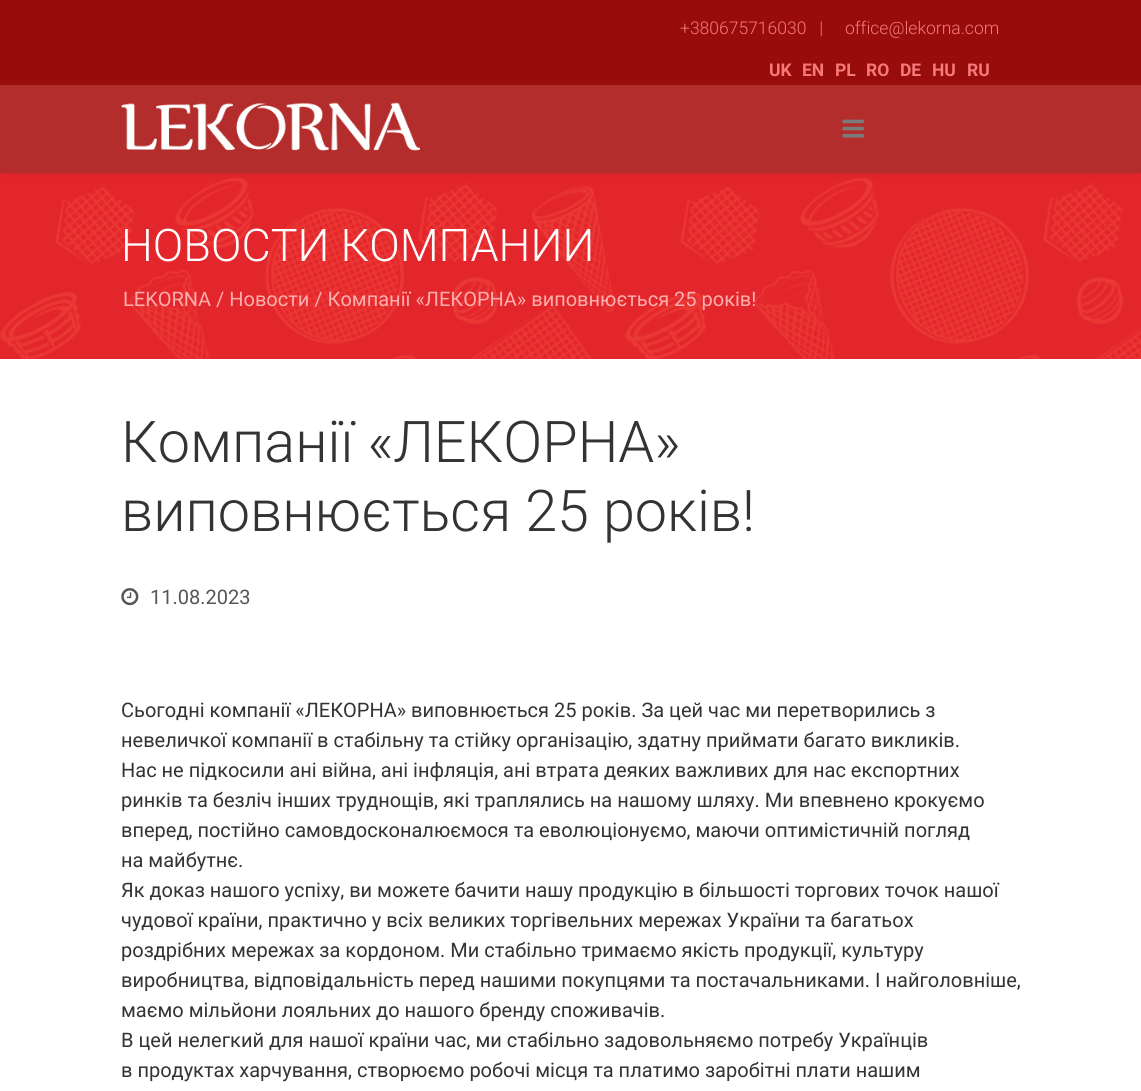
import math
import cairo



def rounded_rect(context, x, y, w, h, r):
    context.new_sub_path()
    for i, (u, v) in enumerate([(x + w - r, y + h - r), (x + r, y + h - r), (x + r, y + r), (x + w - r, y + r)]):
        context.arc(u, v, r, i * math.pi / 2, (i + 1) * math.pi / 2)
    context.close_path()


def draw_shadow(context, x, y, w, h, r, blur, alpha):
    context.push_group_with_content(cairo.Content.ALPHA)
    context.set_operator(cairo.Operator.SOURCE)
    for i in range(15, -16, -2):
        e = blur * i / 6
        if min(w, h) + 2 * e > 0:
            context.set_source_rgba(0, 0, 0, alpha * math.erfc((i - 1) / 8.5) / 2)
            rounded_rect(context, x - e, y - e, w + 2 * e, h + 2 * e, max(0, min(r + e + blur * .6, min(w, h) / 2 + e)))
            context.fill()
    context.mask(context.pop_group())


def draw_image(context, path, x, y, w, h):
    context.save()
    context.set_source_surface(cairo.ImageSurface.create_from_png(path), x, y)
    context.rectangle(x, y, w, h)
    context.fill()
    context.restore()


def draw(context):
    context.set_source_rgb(1, 1, 1)
    context.paint()
    context.set_source_rgb(153 / 255, 12 / 255, 12 / 255)
    context.rectangle(0, 0, 1141, 85)
    context.fill()
    context.set_source_rgb(227 / 255, 38 / 255, 43 / 255)
    context.rectangle(0, 173, 1141, 186)
    context.fill()
    draw_image(context, "images/3.png", 0, 177, 1141, 182)
    context.set_source_rgb(0, 0, 0)
    draw_shadow(context, 0, 89, 1141, 87, 0, 2, 0.05)
    context.set_source_rgb(180 / 255, 45 / 255, 45 / 255)
    context.rectangle(0, 85, 1141, 88)
    context.fill()
    draw_image(context, "images/1.png", 121, 102, 299, 49)
    draw_image(context, "images/2.png", 842, 119, 22, 19)
    draw_image(context, "images/4.png", 121, 588, 18, 18)
    context.select_font_face("Roboto Light")
    context.set_font_size(17.5)
    context.set_source_rgb(245 / 255, 122 / 255, 122 / 255)
    context.move_to(680, 34)
    context.show_text("+380675716030   |")
    context.move_to(845, 34)
    context.show_text("office@lekorna.com")
    context.select_font_face("Roboto", cairo.FontSlant.NORMAL, cairo.FontWeight.BOLD)
    context.move_to(769, 76)
    context.show_text("UK")
    context.move_to(802, 76)
    context.show_text("EN")
    context.move_to(835, 76)
    context.show_text("PL")
    context.move_to(866, 76)
    context.show_text("RO")
    context.move_to(900, 76)
    context.show_text("DE")
    context.move_to(932, 76)
    context.show_text("HU")
    context.move_to(967, 76)
    context.show_text("RU")
    context.select_font_face("Roboto Light")
    context.set_font_size(45)
    context.set_source_rgb(1, 1, 1)
    context.move_to(121, 261)
    context.show_text("НОВОСТИ КОМПАНИИ")
    context.select_font_face("Roboto")
    context.set_font_size(20)
    context.set_source_rgb(1, 174 / 255, 174 / 255)
    context.move_to(123, 306)
    context.show_text("LEKORNA / Новости / Компанії «ЛЕКОРНА» виповнюється 25 років!")
    context.select_font_face("Roboto Light")
    context.set_font_size(57.5)
    context.set_source_rgb(51 / 255, 51 / 255, 51 / 255)
    context.move_to(121, 462)
    context.show_text("Компанії «ЛЕКОРНА»")
    context.move_to(121, 531)
    context.show_text("виповнюється 25 років!")
    context.select_font_face("Roboto")
    context.set_font_size(20)
    context.set_source_rgb(86 / 255, 86 / 255, 86 / 255)
    context.move_to(150, 604)
    context.show_text("11.08.2023")
    context.set_source_rgb(51 / 255, 51 / 255, 51 / 255)
    context.move_to(121, 717)
    context.show_text("Сьогодні компанії «ЛЕКОРНА» виповнюється 25 років. За цей час ми перетворились з")
    context.move_to(121, 747)
    context.show_text("невеличкої компанії в стабільну та стійку організацію, здатну приймати багато викликів.")
    context.move_to(121, 777)
    context.show_text("Нас не підкосили ані війна, ані інфляція, ані втрата деяких важливих для нас експортних")
    context.move_to(121, 807)
    context.show_text("ринків та безліч інших труднощів, які траплялись на нашому шляху. Ми впевнено крокуємо")
    context.move_to(121, 837)
    context.show_text("вперед, постійно самовдосконалюємося та еволюціонуємо, маючи оптимістичній погляд")
    context.move_to(121, 867)
    context.show_text("на майбутнє.")
    context.move_to(121, 897)
    context.show_text("Як доказ нашого успіху, ви можете бачити нашу продукцію в більшості торгових точок нашої")
    context.move_to(121, 927)
    context.show_text("чудової країни, практично у всіх великих торгівельних мережах України та багатьох")
    context.move_to(121, 957)
    context.show_text("роздрібних мережах за кордоном. Ми стабільно тримаємо якість продукції, культуру")
    context.move_to(121, 987)
    context.show_text("виробництва, відповідальність перед нашими покупцями та постачальниками. І найголовніше,")
    context.move_to(121, 1017)
    context.show_text("маємо мільйони лояльних до нашого бренду споживачів.")
    context.move_to(121, 1047)
    context.show_text("В цей нелегкий для нашої країни час, ми стабільно задовольняємо потребу Українців")
    context.move_to(121, 1077)
    context.show_text("в продуктах харчування, створюємо робочі місця та платимо заробітні плати нашим")


surface = cairo.ImageSurface(cairo.Format.RGB24, 1141, 1091)
context = cairo.Context(surface)
options = cairo.FontOptions()
options.set_hint_metrics(cairo.HintMetrics.OFF)
options.set_hint_style(cairo.HintStyle.NONE)
context.set_font_options(options)
context.set_miter_limit(4)
draw(context)
surface.write_to_png("out.png")
